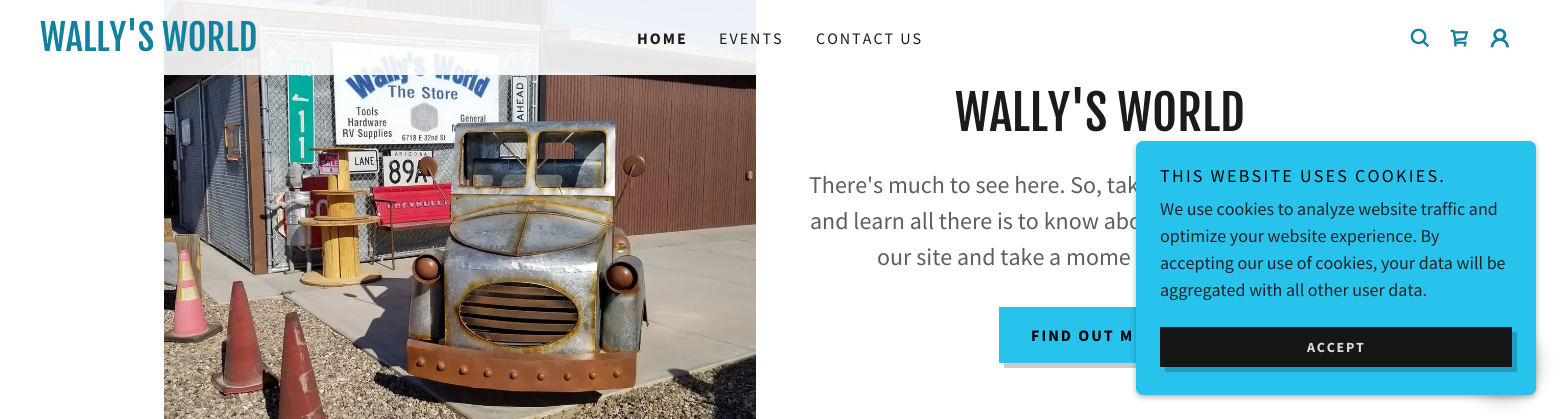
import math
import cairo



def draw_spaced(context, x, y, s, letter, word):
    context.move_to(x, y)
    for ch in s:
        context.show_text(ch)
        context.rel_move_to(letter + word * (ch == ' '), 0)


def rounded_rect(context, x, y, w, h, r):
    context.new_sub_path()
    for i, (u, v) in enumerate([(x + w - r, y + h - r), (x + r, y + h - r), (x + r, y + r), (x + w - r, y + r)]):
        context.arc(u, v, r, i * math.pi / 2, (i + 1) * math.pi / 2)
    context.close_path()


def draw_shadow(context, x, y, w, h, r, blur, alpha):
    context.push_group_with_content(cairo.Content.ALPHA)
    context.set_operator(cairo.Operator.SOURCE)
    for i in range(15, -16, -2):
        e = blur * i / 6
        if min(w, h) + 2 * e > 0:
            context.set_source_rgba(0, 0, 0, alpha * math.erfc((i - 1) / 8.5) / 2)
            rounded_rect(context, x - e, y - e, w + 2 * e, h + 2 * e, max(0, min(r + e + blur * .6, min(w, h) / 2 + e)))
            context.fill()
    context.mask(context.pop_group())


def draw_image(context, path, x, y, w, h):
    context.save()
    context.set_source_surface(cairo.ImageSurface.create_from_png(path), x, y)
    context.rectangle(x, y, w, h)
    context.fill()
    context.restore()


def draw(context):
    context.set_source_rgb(1, 1, 1)
    context.paint()
    draw_image(context, "images/4.png", 164, 0, 592, 419)
    context.set_source_rgba(1, 1, 1, 0.9)
    context.rectangle(164, 0, 592, 75)
    context.fill()
    draw_image(context, "images/1.png", 1410, 28, 20, 20)
    draw_image(context, "images/2.png", 1450, 29, 19, 18)
    draw_image(context, "images/3.png", 1490, 28, 19, 20)
    context.set_source_rgb(40 / 255, 195 / 255, 237 / 255)
    context.rectangle(999, 307, 137, 56)
    context.fill()
    context.set_source_rgb(204 / 255, 204 / 255, 204 / 255)
    context.new_path()
    context.move_to(1004, 363)
    context.line_to(1004, 368)
    context.line_to(1206, 368)
    context.line_to(1206, 312)
    context.line_to(1201, 312)
    context.line_to(1201, 363)
    context.close_path()
    context.fill()
    context.set_source_rgb(0, 0, 0)
    draw_shadow(context, 1136, 143, 400, 254, 7, 3, 0.3)
    draw_shadow(context, 1471, 333, 65, 65, 32.5, 9, 0.25)
    context.select_font_face("Fjalla One")
    context.set_font_size(36)
    context.set_source_rgb(19 / 255, 128 / 255, 158 / 255)
    context.move_to(40, 51)
    context.show_text("WALLY'S WORLD")
    context.select_font_face("Source Sans Pro", cairo.FontSlant.NORMAL, cairo.FontWeight.BOLD)
    context.set_font_size(16)
    context.set_source_rgb(27 / 255, 27 / 255, 27 / 255)
    draw_spaced(context, 637, 44, "HOME", 2, 0)
    context.select_font_face("Source Sans Pro")
    draw_spaced(context, 719, 44, "EVENTS", 2, 0)
    draw_spaced(context, 816, 44, "CONTACT US", 2, 0)
    context.select_font_face("Fjalla One")
    context.set_font_size(48)
    context.move_to(955, 131)
    context.show_text("WALLY'S WORLD")
    context.select_font_face("Source Sans Pro")
    context.set_font_size(24)
    context.set_source_rgb(94 / 255, 94 / 255, 94 / 255)
    context.move_to(809, 193)
    context.show_text("There's much to see here. So, tak")
    context.move_to(810, 229)
    context.show_text("and learn all there is to know abo")
    context.move_to(877, 265)
    context.show_text("our site and take a mome")
    context.select_font_face("Source Sans Pro", cairo.FontSlant.NORMAL, cairo.FontWeight.BOLD)
    context.set_font_size(16)
    context.set_source_rgb(0, 0, 0)
    draw_spaced(context, 1031, 341, "FIND OUT M", 2, 0)
    context.set_source_rgb(40 / 255, 195 / 255, 237 / 255)
    rounded_rect(context, 1136, 141, 400, 254, 7)
    context.fill()
    context.select_font_face("Source Sans Pro")
    context.set_font_size(18)
    context.set_source_rgb(0, 0, 0)
    draw_spaced(context, 1160, 182, "THIS WEBSITE USES COOKIES.", 2.25, 0)
    context.set_source_rgb(31 / 255, 35 / 255, 37 / 255)
    context.move_to(1160, 215)
    context.show_text("We use cookies to analyze website traffic and")
    context.move_to(1160, 242)
    context.show_text("optimize your website experience. By")
    context.move_to(1160, 269)
    context.show_text("accepting our use of cookies, your data will be")
    context.move_to(1160, 296)
    context.show_text("aggregated with all other user data.")
    context.set_source_rgb(22 / 255, 22 / 255, 22 / 255)
    context.rectangle(1160, 327, 352, 40)
    context.fill()
    context.set_source_rgb(32 / 255, 156 / 255, 190 / 255)
    context.new_path()
    context.move_to(1165, 367)
    context.line_to(1165, 372)
    context.line_to(1517, 372)
    context.line_to(1517, 332)
    context.line_to(1512, 332)
    context.line_to(1512, 367)
    context.close_path()
    context.fill()
    context.select_font_face("Source Sans Pro", cairo.FontSlant.NORMAL, cairo.FontWeight.BOLD)
    context.set_font_size(14)
    context.set_source_rgb(219 / 255, 219 / 255, 219 / 255)
    draw_spaced(context, 1307, 352, "ACCEPT", 1.75, 0)


surface = cairo.ImageSurface(cairo.Format.RGB24, 1560, 419)
context = cairo.Context(surface)
options = cairo.FontOptions()
options.set_hint_metrics(cairo.HintMetrics.OFF)
options.set_hint_style(cairo.HintStyle.NONE)
context.set_font_options(options)
context.set_miter_limit(4)
draw(context)
surface.write_to_png("out.png")
